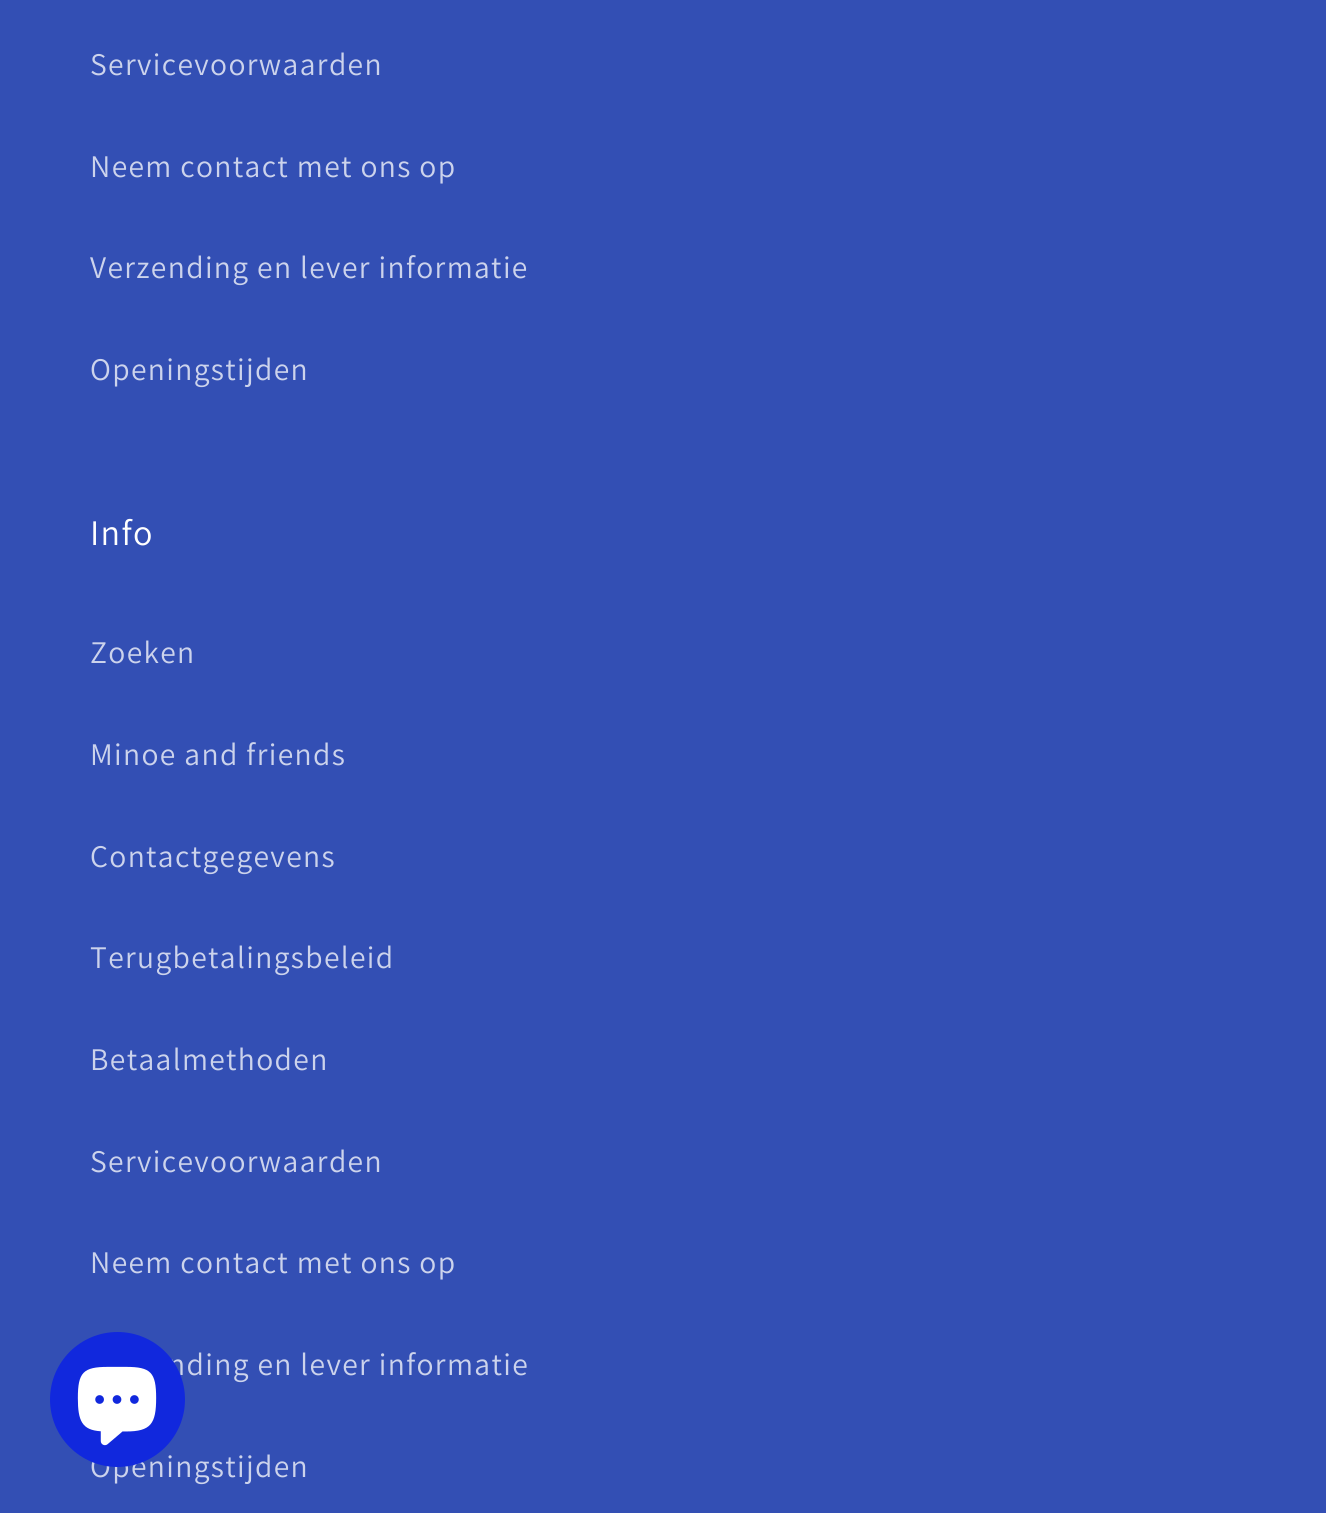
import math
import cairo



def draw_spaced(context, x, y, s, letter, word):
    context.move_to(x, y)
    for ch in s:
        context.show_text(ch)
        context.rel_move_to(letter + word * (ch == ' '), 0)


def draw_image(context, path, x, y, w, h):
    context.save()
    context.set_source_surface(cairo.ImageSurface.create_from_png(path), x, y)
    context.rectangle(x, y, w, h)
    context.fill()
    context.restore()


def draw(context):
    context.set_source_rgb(51 / 255, 79 / 255, 180 / 255)
    context.paint()
    context.select_font_face("Assistant")
    context.set_font_size(31.5)
    context.set_source_rgb(204 / 255, 211 / 255, 236 / 255)
    draw_spaced(context, 90, 75, "Servicevoorwaarden", 1.35, 0)
    draw_spaced(context, 90, 177, "Neem contact met ons op", 1.35, 0)
    draw_spaced(context, 90, 278, "Verzending en lever informatie", 1.35, 0)
    draw_spaced(context, 90, 380, "Openingstijden", 1.35, 0)
    context.set_font_size(36)
    context.set_source_rgb(1, 1, 1)
    draw_spaced(context, 90, 545, "Info", 1.35, 0)
    context.set_font_size(31.5)
    context.set_source_rgb(204 / 255, 211 / 255, 236 / 255)
    draw_spaced(context, 90, 663, "Zoeken", 1.35, 0)
    draw_spaced(context, 90, 765, "Minoe and friends", 1.35, 0)
    draw_spaced(context, 90, 867, "Contactgegevens", 1.35, 0)
    draw_spaced(context, 90, 968, "Terugbetalingsbeleid", 1.35, 0)
    draw_spaced(context, 90, 1070, "Betaalmethoden", 1.35, 0)
    draw_spaced(context, 90, 1172, "Servicevoorwaarden", 1.35, 0)
    draw_spaced(context, 90, 1273, "Neem contact met ons op", 1.35, 0)
    draw_spaced(context, 168, 1375, "nding en lever informatie", 1.35, 0)
    draw_spaced(context, 90, 1477, "Openingstijden", 1.35, 0)
    context.set_source_rgb(17 / 255, 40 / 255, 221 / 255)
    context.new_path()
    context.arc(117.5, 1399.5, 67.5, 0, 2 * math.pi)
    context.fill()
    draw_image(context, "images/1.png", 77, 1366, 80, 80)


surface = cairo.ImageSurface(cairo.Format.RGB24, 1326, 1513)
context = cairo.Context(surface)
options = cairo.FontOptions()
options.set_hint_metrics(cairo.HintMetrics.OFF)
options.set_hint_style(cairo.HintStyle.NONE)
context.set_font_options(options)
context.set_miter_limit(4)
draw(context)
surface.write_to_png("out.png")
